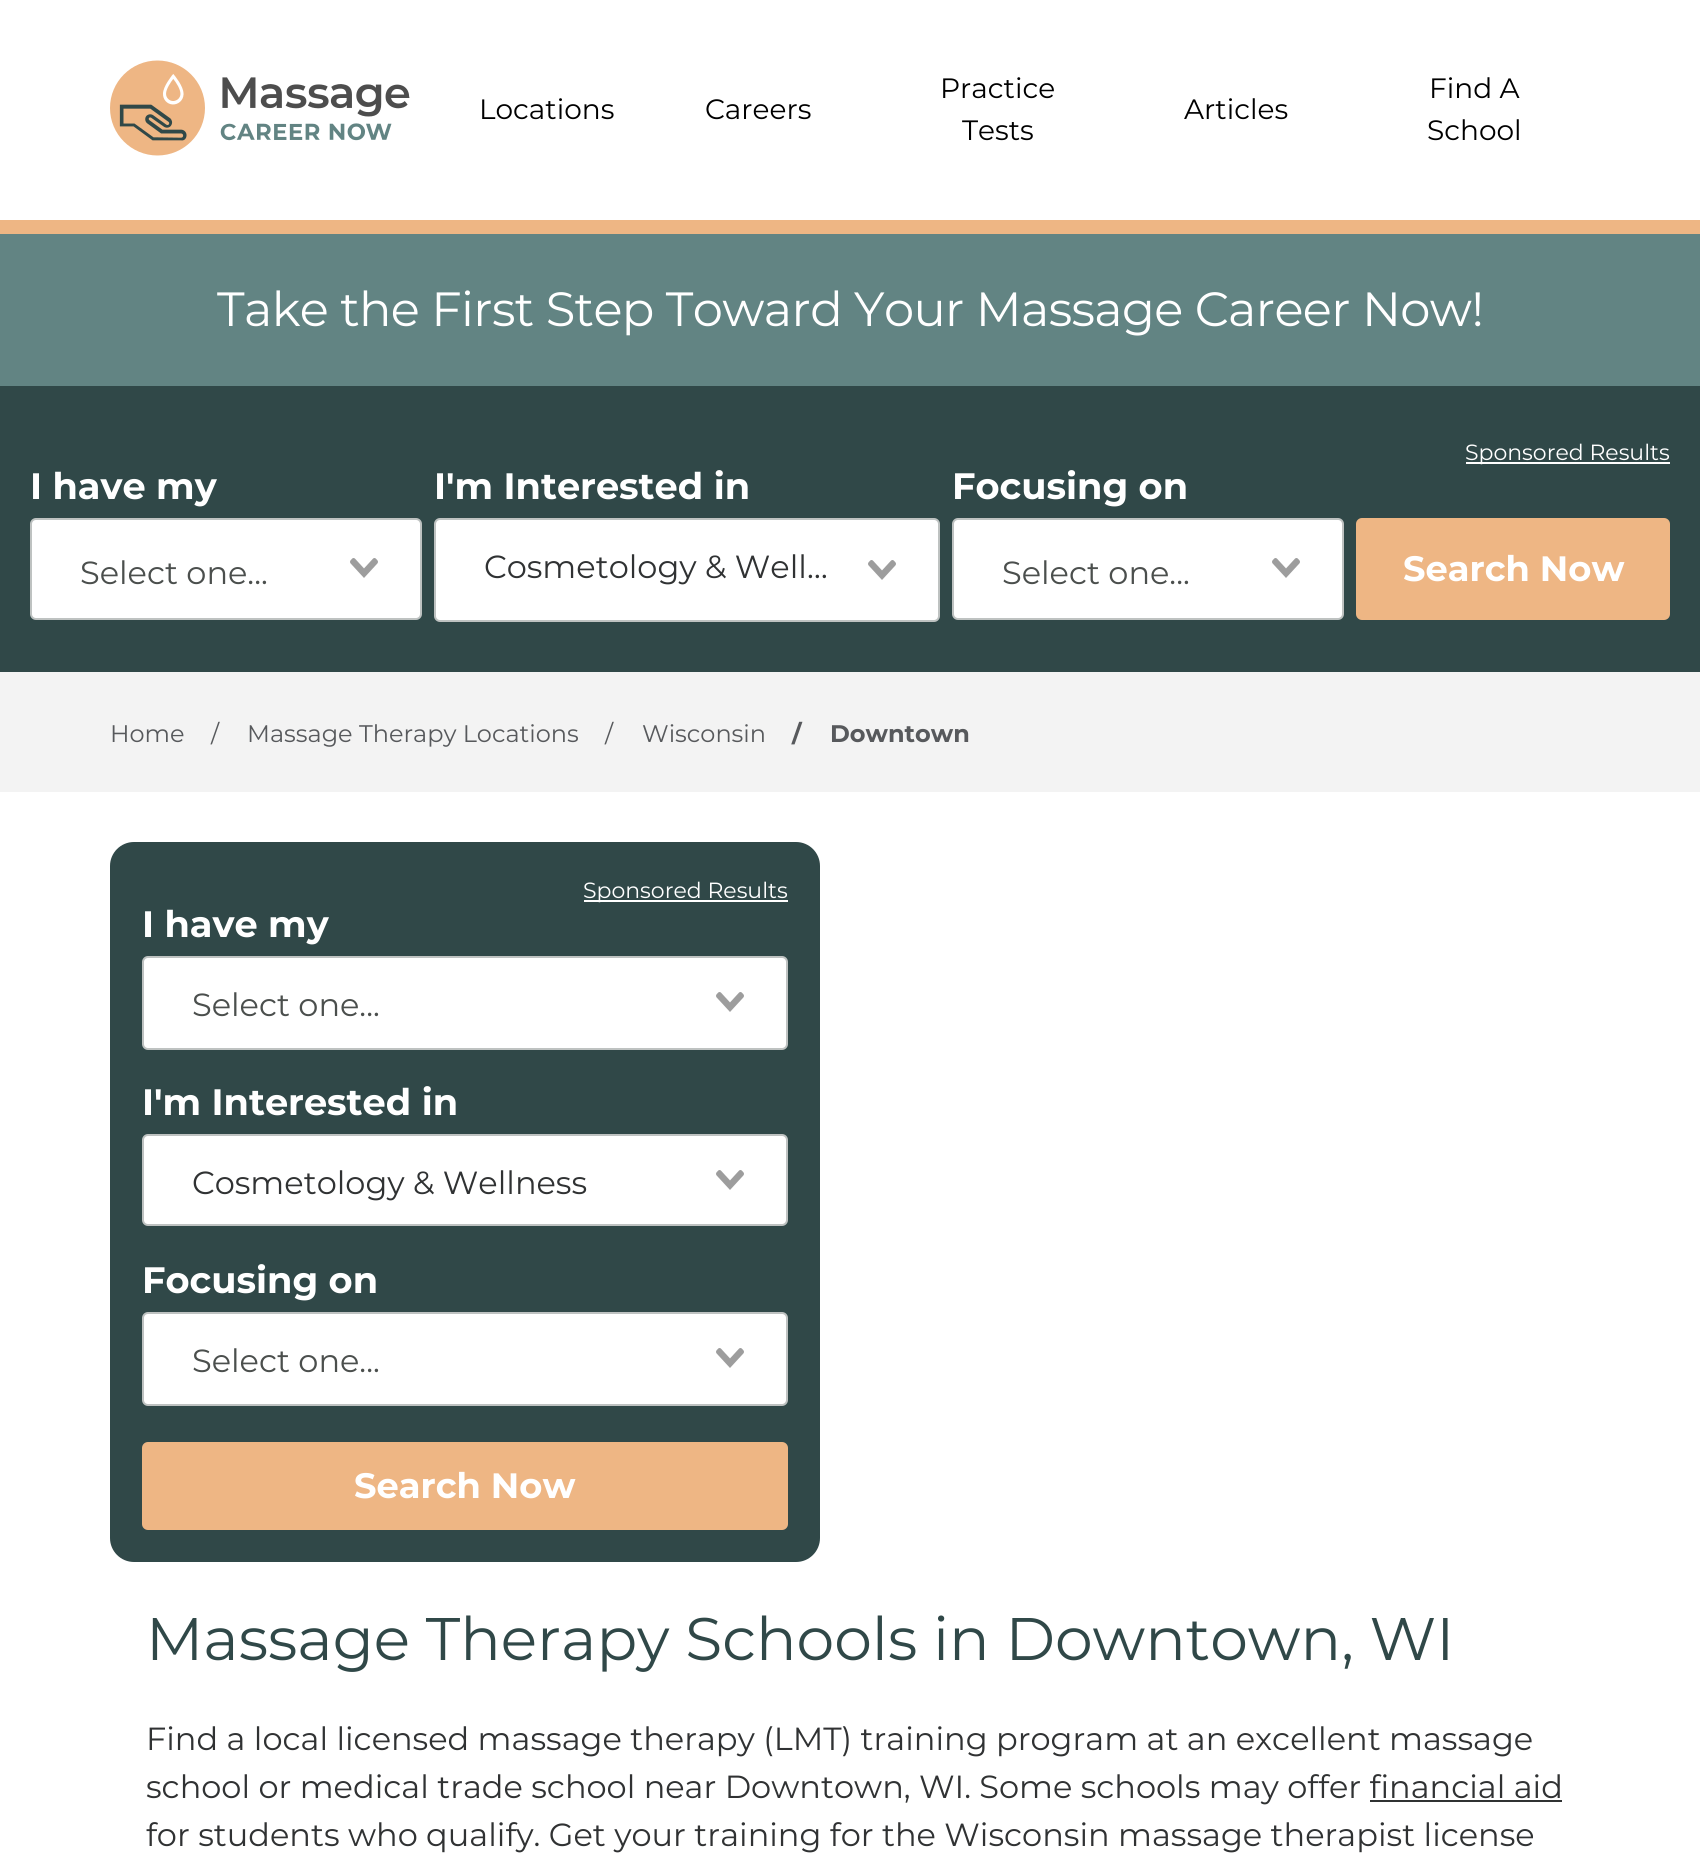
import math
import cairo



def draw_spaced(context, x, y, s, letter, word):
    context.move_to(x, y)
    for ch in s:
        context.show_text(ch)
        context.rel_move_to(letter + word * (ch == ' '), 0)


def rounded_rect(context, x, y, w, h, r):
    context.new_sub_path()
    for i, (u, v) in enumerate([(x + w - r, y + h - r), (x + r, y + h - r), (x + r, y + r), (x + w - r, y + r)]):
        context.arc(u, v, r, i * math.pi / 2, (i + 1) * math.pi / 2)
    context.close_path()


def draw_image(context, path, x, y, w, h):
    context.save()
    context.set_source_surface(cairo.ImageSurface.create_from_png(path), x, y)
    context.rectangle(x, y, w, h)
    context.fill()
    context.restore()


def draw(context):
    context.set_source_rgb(1, 1, 1)
    context.paint()
    draw_image(context, "images/1.png", 110, 60, 300, 96)
    context.set_source_rgb(98 / 255, 132 / 255, 131 / 255)
    context.rectangle(0, 234, 1700, 152)
    context.fill()
    context.set_source_rgb(238 / 255, 182 / 255, 132 / 255)
    context.rectangle(0, 220, 1700, 14)
    context.fill()
    context.set_source_rgb(48 / 255, 72 / 255, 72 / 255)
    context.rectangle(0, 386, 1700, 286)
    context.fill()
    context.set_source_rgb(1, 1, 1)
    context.rectangle(1466, 462, 204, 2)
    context.fill()
    rounded_rect(context, 31, 519, 390, 100, 5)
    context.fill_preserve()
    context.set_source_rgb(190 / 255, 194 / 255, 193 / 255)
    context.stroke()
    draw_image(context, "images/2.png", 350, 558, 28, 20)
    context.set_source_rgb(1, 1, 1)
    rounded_rect(context, 435, 519, 504, 102, 5)
    context.fill_preserve()
    context.set_source_rgb(190 / 255, 194 / 255, 193 / 255)
    context.stroke()
    draw_image(context, "images/2.png", 868, 560, 28, 20)
    context.set_source_rgb(1, 1, 1)
    rounded_rect(context, 953, 519, 390, 100, 5)
    context.fill_preserve()
    context.set_source_rgb(190 / 255, 194 / 255, 193 / 255)
    context.stroke()
    draw_image(context, "images/2.png", 1272, 558, 28, 20)
    context.set_source_rgb(238 / 255, 182 / 255, 132 / 255)
    rounded_rect(context, 1356, 518, 314, 102, 6)
    context.fill()
    context.set_source_rgb(243 / 255, 243 / 255, 243 / 255)
    context.rectangle(0, 672, 1700, 120)
    context.fill()
    context.set_source_rgb(48 / 255, 72 / 255, 72 / 255)
    rounded_rect(context, 110, 842, 710, 720, 24)
    context.fill()
    context.set_source_rgb(1, 1, 1)
    context.rectangle(584, 900, 204, 2)
    context.fill()
    rounded_rect(context, 143, 957, 644, 92, 5)
    context.fill_preserve()
    context.set_source_rgb(190 / 255, 194 / 255, 193 / 255)
    context.stroke()
    draw_image(context, "images/2.png", 716, 992, 28, 20)
    context.set_source_rgb(1, 1, 1)
    rounded_rect(context, 143, 1135, 644, 90, 5)
    context.fill_preserve()
    context.set_source_rgb(190 / 255, 194 / 255, 193 / 255)
    context.stroke()
    draw_image(context, "images/2.png", 716, 1170, 28, 20)
    context.set_source_rgb(1, 1, 1)
    rounded_rect(context, 143, 1313, 644, 92, 5)
    context.fill_preserve()
    context.set_source_rgb(190 / 255, 194 / 255, 193 / 255)
    context.stroke()
    draw_image(context, "images/2.png", 716, 1348, 28, 20)
    context.set_source_rgb(238 / 255, 182 / 255, 132 / 255)
    rounded_rect(context, 142, 1442, 646, 88, 6)
    context.fill()
    context.set_source_rgb(48 / 255, 50 / 255, 51 / 255)
    context.rectangle(1370, 1800, 192, 2)
    context.fill()
    context.select_font_face("Montserrat")
    context.set_font_size(28)
    context.set_source_rgb(0, 0, 0)
    context.move_to(479, 119)
    context.show_text("Locations")
    context.move_to(705, 119)
    context.show_text("Careers")
    context.move_to(940, 98)
    context.show_text("Practice")
    context.move_to(962, 140)
    context.show_text("Tests")
    context.move_to(1184, 119)
    context.show_text("Articles")
    context.move_to(1429, 98)
    context.show_text("Find A")
    context.move_to(1427, 140)
    context.show_text("School")
    context.set_font_size(48)
    context.set_source_rgb(1, 1, 1)
    draw_spaced(context, 217, 326, "Take the First Step Toward Your Massage Career Now!", -0.6, 0)
    context.set_font_size(22)
    context.move_to(1465, 460)
    context.show_text("Sponsored Results")
    context.select_font_face("Montserrat", cairo.FontSlant.NORMAL, cairo.FontWeight.BOLD)
    context.set_font_size(36.75)
    context.move_to(30, 499)
    context.show_text("I have my")
    context.select_font_face("Montserrat")
    context.set_font_size(32)
    context.set_source_rgb(75 / 255, 79 / 255, 77 / 255)
    context.move_to(80, 584)
    context.show_text("Select one...")
    context.select_font_face("Montserrat", cairo.FontSlant.NORMAL, cairo.FontWeight.BOLD)
    context.set_font_size(36.75)
    context.set_source_rgb(1, 1, 1)
    context.move_to(434, 499)
    context.show_text("I'm Interested in")
    context.select_font_face("Montserrat")
    context.set_font_size(32)
    context.set_source_rgb(48 / 255, 50 / 255, 51 / 255)
    context.move_to(484, 578)
    context.show_text("Cosmetology & Well…")
    context.select_font_face("Montserrat", cairo.FontSlant.NORMAL, cairo.FontWeight.BOLD)
    context.set_font_size(36.75)
    context.set_source_rgb(1, 1, 1)
    context.move_to(952, 499)
    context.show_text("Focusing on")
    context.select_font_face("Montserrat")
    context.set_font_size(32)
    context.set_source_rgb(75 / 255, 79 / 255, 77 / 255)
    context.move_to(1002, 584)
    context.show_text("Select one...")
    context.select_font_face("Montserrat", cairo.FontSlant.NORMAL, cairo.FontWeight.BOLD)
    context.set_font_size(35.25)
    context.set_source_rgb(1, 1, 1)
    context.move_to(1403, 581)
    context.show_text("Search Now")
    context.select_font_face("Montserrat")
    context.set_font_size(24)
    context.set_source_rgb(87 / 255, 89 / 255, 92 / 255)
    context.move_to(110, 742)
    context.show_text("Home")
    context.move_to(211, 742)
    context.show_text("/")
    context.move_to(247, 742)
    context.show_text("Massage Therapy Locations")
    context.move_to(605, 742)
    context.show_text("/")
    context.move_to(642, 742)
    context.show_text("Wisconsin")
    context.select_font_face("Montserrat", cairo.FontSlant.NORMAL, cairo.FontWeight.BOLD)
    context.move_to(792, 742)
    context.show_text("/")
    context.move_to(830, 742)
    context.show_text("Downtown")
    context.select_font_face("Montserrat")
    context.set_font_size(22)
    context.set_source_rgb(1, 1, 1)
    context.move_to(583, 898)
    context.show_text("Sponsored Results")
    context.select_font_face("Montserrat", cairo.FontSlant.NORMAL, cairo.FontWeight.BOLD)
    context.set_font_size(36.75)
    context.move_to(142, 937)
    context.show_text("I have my")
    context.select_font_face("Montserrat")
    context.set_font_size(32)
    context.set_source_rgb(75 / 255, 79 / 255, 77 / 255)
    context.move_to(192, 1016)
    context.show_text("Select one...")
    context.select_font_face("Montserrat", cairo.FontSlant.NORMAL, cairo.FontWeight.BOLD)
    context.set_font_size(36.75)
    context.set_source_rgb(1, 1, 1)
    context.move_to(142, 1115)
    context.show_text("I'm Interested in")
    context.select_font_face("Montserrat")
    context.set_font_size(32)
    context.set_source_rgb(48 / 255, 50 / 255, 51 / 255)
    context.move_to(192, 1194)
    context.show_text("Cosmetology & Wellness")
    context.select_font_face("Montserrat", cairo.FontSlant.NORMAL, cairo.FontWeight.BOLD)
    context.set_font_size(36.75)
    context.set_source_rgb(1, 1, 1)
    context.move_to(142, 1293)
    context.show_text("Focusing on")
    context.select_font_face("Montserrat")
    context.set_font_size(32)
    context.set_source_rgb(75 / 255, 79 / 255, 77 / 255)
    context.move_to(192, 1372)
    context.show_text("Select one...")
    context.select_font_face("Montserrat", cairo.FontSlant.NORMAL, cairo.FontWeight.BOLD)
    context.set_font_size(35.25)
    context.set_source_rgb(1, 1, 1)
    context.move_to(354, 1498)
    context.show_text("Search Now")
    context.select_font_face("Montserrat")
    context.set_font_size(60)
    context.set_source_rgb(48 / 255, 72 / 255, 72 / 255)
    context.move_to(146, 1660)
    context.show_text("Massage Therapy Schools in Downtown, WI")
    context.set_font_size(32)
    context.set_source_rgb(48 / 255, 50 / 255, 51 / 255)
    context.move_to(146, 1750)
    context.show_text("Find a local licensed massage therapy (LMT) training program at an excellent massage")
    context.move_to(146, 1798)
    context.show_text("school or medical trade school near Downtown, WI. Some schools may offer financial aid")
    context.move_to(146, 1846)
    context.show_text("for students who qualify. Get your training for the Wisconsin massage therapist license")


surface = cairo.ImageSurface(cairo.Format.RGB24, 1700, 1871)
context = cairo.Context(surface)
options = cairo.FontOptions()
options.set_hint_metrics(cairo.HintMetrics.OFF)
options.set_hint_style(cairo.HintStyle.NONE)
context.set_font_options(options)
context.set_miter_limit(4)
draw(context)
surface.write_to_png("out.png")
